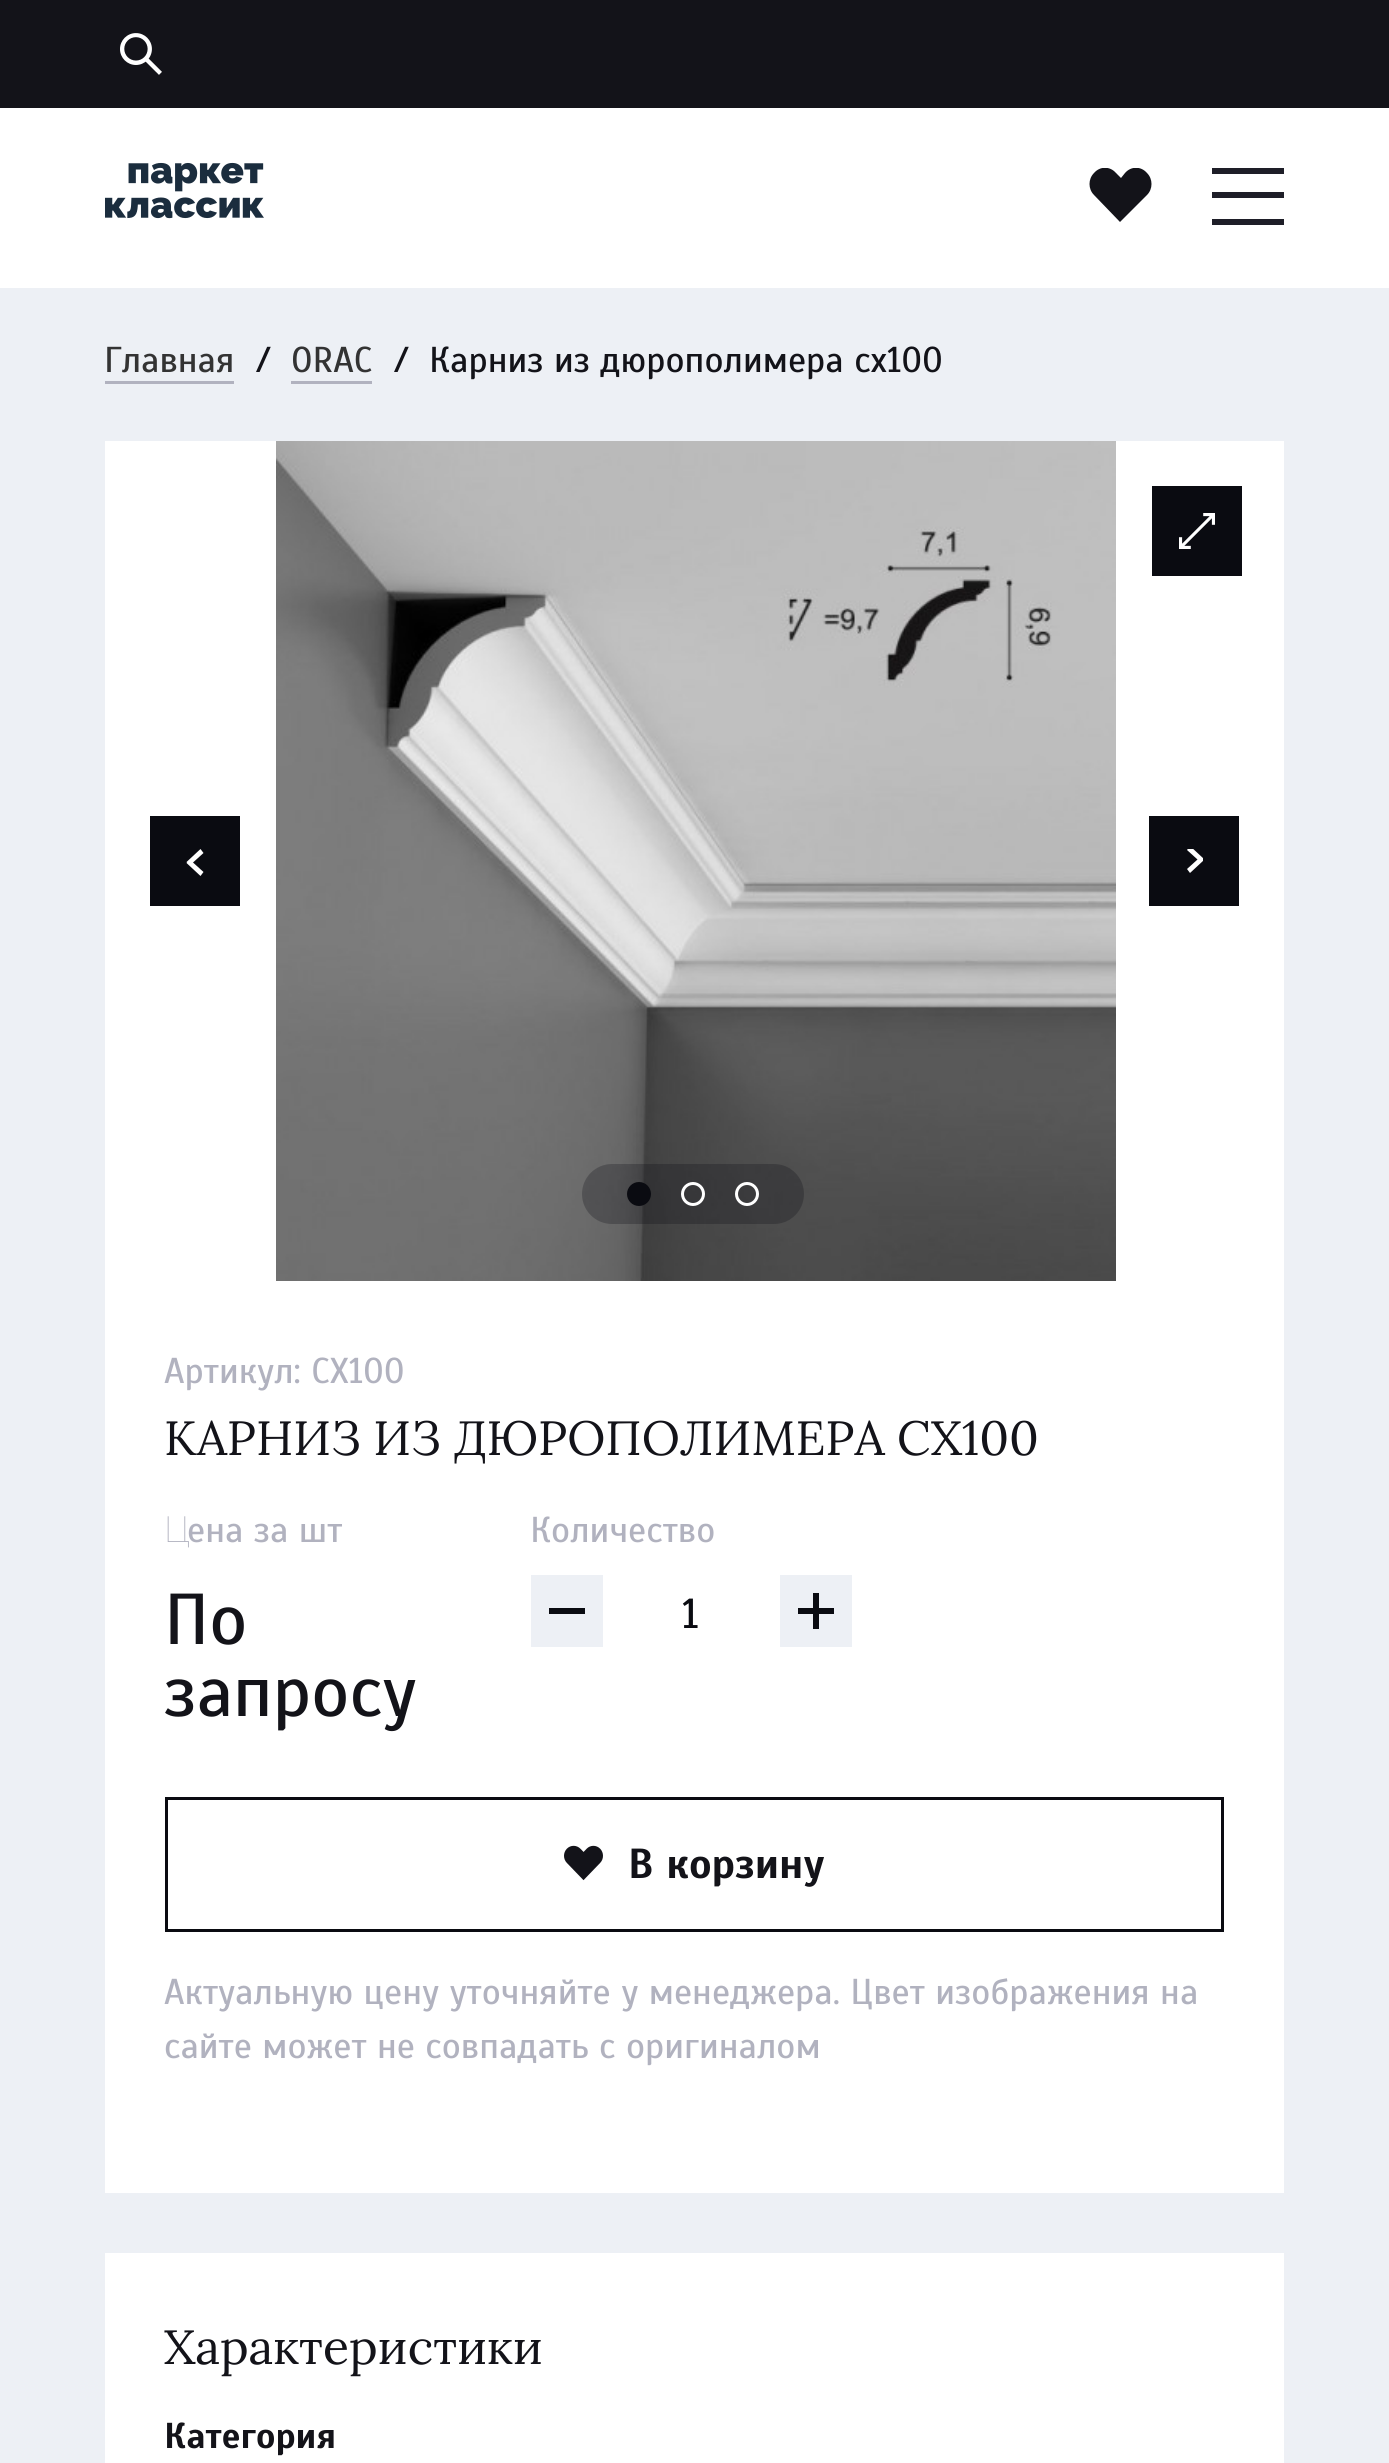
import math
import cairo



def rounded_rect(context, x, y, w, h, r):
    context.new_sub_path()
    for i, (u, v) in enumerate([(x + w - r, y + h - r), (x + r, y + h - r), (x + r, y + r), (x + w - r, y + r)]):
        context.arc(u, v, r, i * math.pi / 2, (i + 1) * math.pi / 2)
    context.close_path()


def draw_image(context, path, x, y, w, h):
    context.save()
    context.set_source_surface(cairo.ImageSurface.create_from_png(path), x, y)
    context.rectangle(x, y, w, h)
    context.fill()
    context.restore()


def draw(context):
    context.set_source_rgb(237 / 255, 240 / 255, 245 / 255)
    context.paint()
    context.set_source_rgb(19 / 255, 19 / 255, 25 / 255)
    context.rectangle(0, 0, 1389, 108)
    context.fill()
    draw_image(context, "images/1.png", 120, 33, 42, 42)
    context.set_source_rgb(1, 1, 1)
    context.rectangle(0, 108, 1389, 180)
    context.fill()
    draw_image(context, "images/2.png", 105, 162, 159, 57)
    context.save()
    context.rectangle(1089, 168, 63, 54)
    context.clip()
    context.set_source_rgb(19 / 255, 19 / 255, 25 / 255)
    context.new_path()
    context.move_to(1094, 173)
    context.curve_to(1088, 179, 1088, 189, 1094, 195)
    context.line_to(1120, 222)
    context.line_to(1147, 195)
    context.curve_to(1153, 189, 1153, 179, 1147, 173)
    context.curve_to(1141, 166, 1131, 166, 1125, 173)
    context.line_to(1121, 178)
    context.line_to(1116, 173)
    context.curve_to(1110, 166, 1100, 166, 1094, 173)
    context.close_path()
    context.fill()
    context.restore()
    context.set_source_rgb(30 / 255, 30 / 255, 40 / 255)
    context.rectangle(1212, 168, 72, 6)
    context.fill()
    context.rectangle(1212, 192, 72, 6)
    context.fill()
    context.rectangle(1212, 219, 72, 6)
    context.fill()
    context.set_source_rgb(177 / 255, 178 / 255, 191 / 255)
    context.rectangle(105, 381, 129, 3)
    context.fill()
    context.rectangle(291, 381, 81, 3)
    context.fill()
    context.set_source_rgb(1, 1, 1)
    context.rectangle(105, 441, 1179, 1752)
    context.fill()
    context.set_source_rgb(10 / 255, 11 / 255, 17 / 255)
    context.rectangle(150, 816, 90, 90)
    context.fill()
    context.set_source_rgb(1, 1, 1)
    context.set_fill_rule(cairo.FillRule.EVEN_ODD)
    context.new_path()
    context.move_to(203.5, 872)
    context.line_to(200.5, 876)
    context.line_to(186.5, 863)
    context.line_to(187, 862.5)
    context.line_to(186.5, 862)
    context.line_to(200.5, 849)
    context.line_to(203.5, 853)
    context.line_to(193, 862.5)
    context.close_path()
    context.fill()
    draw_image(context, "images/3.png", 276, 441, 840, 840)
    context.set_source_rgb(10 / 255, 11 / 255, 17 / 255)
    context.rectangle(1152, 486, 90, 90)
    context.fill()
    draw_image(context, "images/4.png", 1179, 513, 36, 36)
    context.rectangle(1149, 816, 90, 90)
    context.fill()
    context.save()
    context.set_fill_rule(cairo.FillRule.WINDING)
    context.rectangle(1185, 849, 18, 27)
    context.clip()
    context.set_source_rgb(1, 1, 1)
    context.set_fill_rule(cairo.FillRule.EVEN_ODD)
    context.new_path()
    context.move_to(1187, 850)
    context.line_to(1190, 846)
    context.line_to(1204, 859)
    context.line_to(1203.5, 859.5)
    context.line_to(1204, 860)
    context.line_to(1190, 873)
    context.line_to(1187, 869)
    context.line_to(1197.5, 859.5)
    context.close_path()
    context.fill()
    context.restore()
    context.set_source_rgba(10 / 255, 11 / 255, 17 / 255, 0.25)
    rounded_rect(context, 582, 1164, 222, 60, 30)
    context.fill()
    context.set_source_rgb(10 / 255, 11 / 255, 17 / 255)
    context.arc(639, 1194, 10.5, 0, 2 * math.pi)
    context.fill_preserve()
    context.set_line_width(3)
    context.stroke()
    context.arc(693, 1194, 10.5, 0, 2 * math.pi)
    context.set_source_rgb(1, 1, 1)
    context.stroke()
    context.arc(747, 1194, 10.5, 0, 2 * math.pi)
    context.stroke()
    context.set_source_rgb(237 / 255, 240 / 255, 245 / 255)
    context.rectangle(531, 1575, 72, 72)
    context.fill()
    context.set_source_rgb(10 / 255, 11 / 255, 17 / 255)
    context.rectangle(549, 1608, 36, 6)
    context.fill()
    context.set_source_rgb(237 / 255, 240 / 255, 245 / 255)
    context.rectangle(780, 1575, 72, 72)
    context.fill()
    context.set_source_rgb(10 / 255, 11 / 255, 17 / 255)
    context.rectangle(798, 1608, 36, 6)
    context.fill()
    context.rectangle(813, 1593, 6, 36)
    context.fill()
    context.rectangle(166.5, 1798.5, 1056, 132)
    context.stroke()
    draw_image(context, "images/5.png", 564, 1845, 39, 36)
    context.set_source_rgb(1, 1, 1)
    context.rectangle(105, 2253, 1179, 210)
    context.fill()
    context.select_font_face("Scada")
    context.set_font_size(36)
    context.set_source_rgb(51 / 255, 51 / 255, 51 / 255)
    context.move_to(104, 372)
    context.show_text("Главная")
    context.set_source_rgb(19 / 255, 19 / 255, 25 / 255)
    context.move_to(256, 372)
    context.show_text("/")
    context.set_source_rgb(51 / 255, 51 / 255, 51 / 255)
    context.move_to(291, 372)
    context.show_text("ORAC")
    context.set_source_rgb(19 / 255, 19 / 255, 25 / 255)
    context.move_to(394, 372)
    context.show_text("/")
    context.move_to(429, 372)
    context.show_text("Карниз из дюрополимера cx100")
    context.set_source_rgb(177 / 255, 178 / 255, 191 / 255)
    context.move_to(164, 1383)
    context.show_text("Артикул: CX100")
    context.select_font_face("Lora")
    context.set_font_size(48)
    context.set_source_rgb(19 / 255, 19 / 255, 25 / 255)
    context.move_to(164, 1455)
    context.show_text("КАРНИЗ ИЗ ДЮРОПОЛИМЕРА CX100")
    context.select_font_face("Noto Sans Thin")
    context.set_font_size(36)
    context.set_source_rgb(177 / 255, 178 / 255, 191 / 255)
    context.move_to(164, 1542)
    context.show_text("Ц")
    context.select_font_face("Scada")
    context.move_to(187, 1542)
    context.show_text("ена за шт")
    context.set_font_size(72)
    context.set_source_rgb(19 / 255, 19 / 255, 25 / 255)
    context.move_to(164, 1644)
    context.show_text("По")
    context.move_to(164, 1716)
    context.show_text("запросу")
    context.set_font_size(36)
    context.set_source_rgb(177 / 255, 178 / 255, 191 / 255)
    context.move_to(530, 1542)
    context.show_text("Количество")
    context.set_font_size(42)
    context.set_source_rgb(10 / 255, 11 / 255, 17 / 255)
    context.move_to(682, 1628)
    context.show_text("1")
    context.select_font_face("Scada", cairo.FontSlant.NORMAL, cairo.FontWeight.BOLD)
    context.set_source_rgb(19 / 255, 19 / 255, 25 / 255)
    context.move_to(628, 1878)
    context.show_text("В корзину")
    context.select_font_face("Scada")
    context.set_font_size(36)
    context.set_source_rgb(177 / 255, 178 / 255, 191 / 255)
    context.move_to(164, 2004)
    context.show_text("Актуальную цену уточняйте у менеджера. Цвет изображения на")
    context.move_to(164, 2058)
    context.show_text("сайте может не совпадать с оригиналом")
    context.select_font_face("Lora")
    context.set_font_size(48)
    context.set_source_rgb(19 / 255, 19 / 255, 25 / 255)
    context.move_to(164, 2364)
    context.show_text("Характеристики")
    context.select_font_face("Scada", cairo.FontSlant.NORMAL, cairo.FontWeight.BOLD)
    context.set_font_size(36)
    context.move_to(164, 2448)
    context.show_text("Категория")


surface = cairo.ImageSurface(cairo.Format.RGB24, 1389, 2463)
context = cairo.Context(surface)
options = cairo.FontOptions()
options.set_hint_metrics(cairo.HintMetrics.OFF)
options.set_hint_style(cairo.HintStyle.NONE)
context.set_font_options(options)
context.set_miter_limit(4)
draw(context)
surface.write_to_png("out.png")
